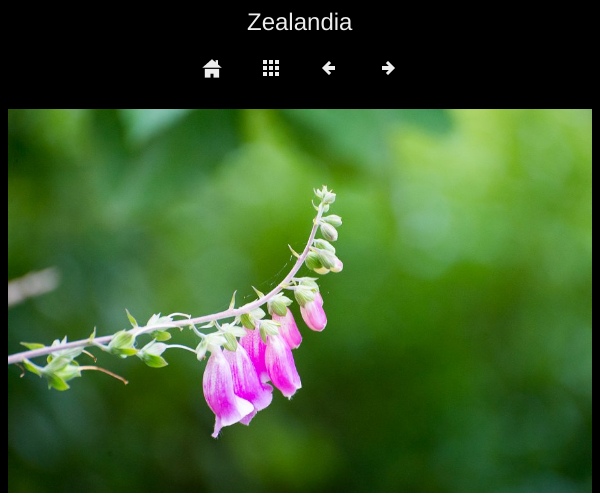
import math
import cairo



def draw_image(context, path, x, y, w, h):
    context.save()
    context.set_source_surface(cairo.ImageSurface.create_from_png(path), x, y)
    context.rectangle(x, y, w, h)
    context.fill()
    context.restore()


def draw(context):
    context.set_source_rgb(0, 0, 0)
    context.paint()
    draw_image(context, "images/1.png", 202, 59, 20, 19)
    draw_image(context, "images/2.png", 263, 60, 16, 16)
    draw_image(context, "images/3.png", 322, 61, 13, 14)
    draw_image(context, "images/4.png", 382, 61, 13, 14)
    draw_image(context, "images/5.png", 8, 109, 584, 384)
    context.select_font_face("Liberation Sans")
    context.set_font_size(24)
    context.set_source_rgb(238 / 255, 238 / 255, 238 / 255)
    context.move_to(247, 30)
    context.show_text("Zealandia")


surface = cairo.ImageSurface(cairo.Format.RGB24, 600, 493)
context = cairo.Context(surface)
options = cairo.FontOptions()
options.set_hint_metrics(cairo.HintMetrics.OFF)
options.set_hint_style(cairo.HintStyle.NONE)
context.set_font_options(options)
context.set_miter_limit(4)
draw(context)
surface.write_to_png("out.png")
